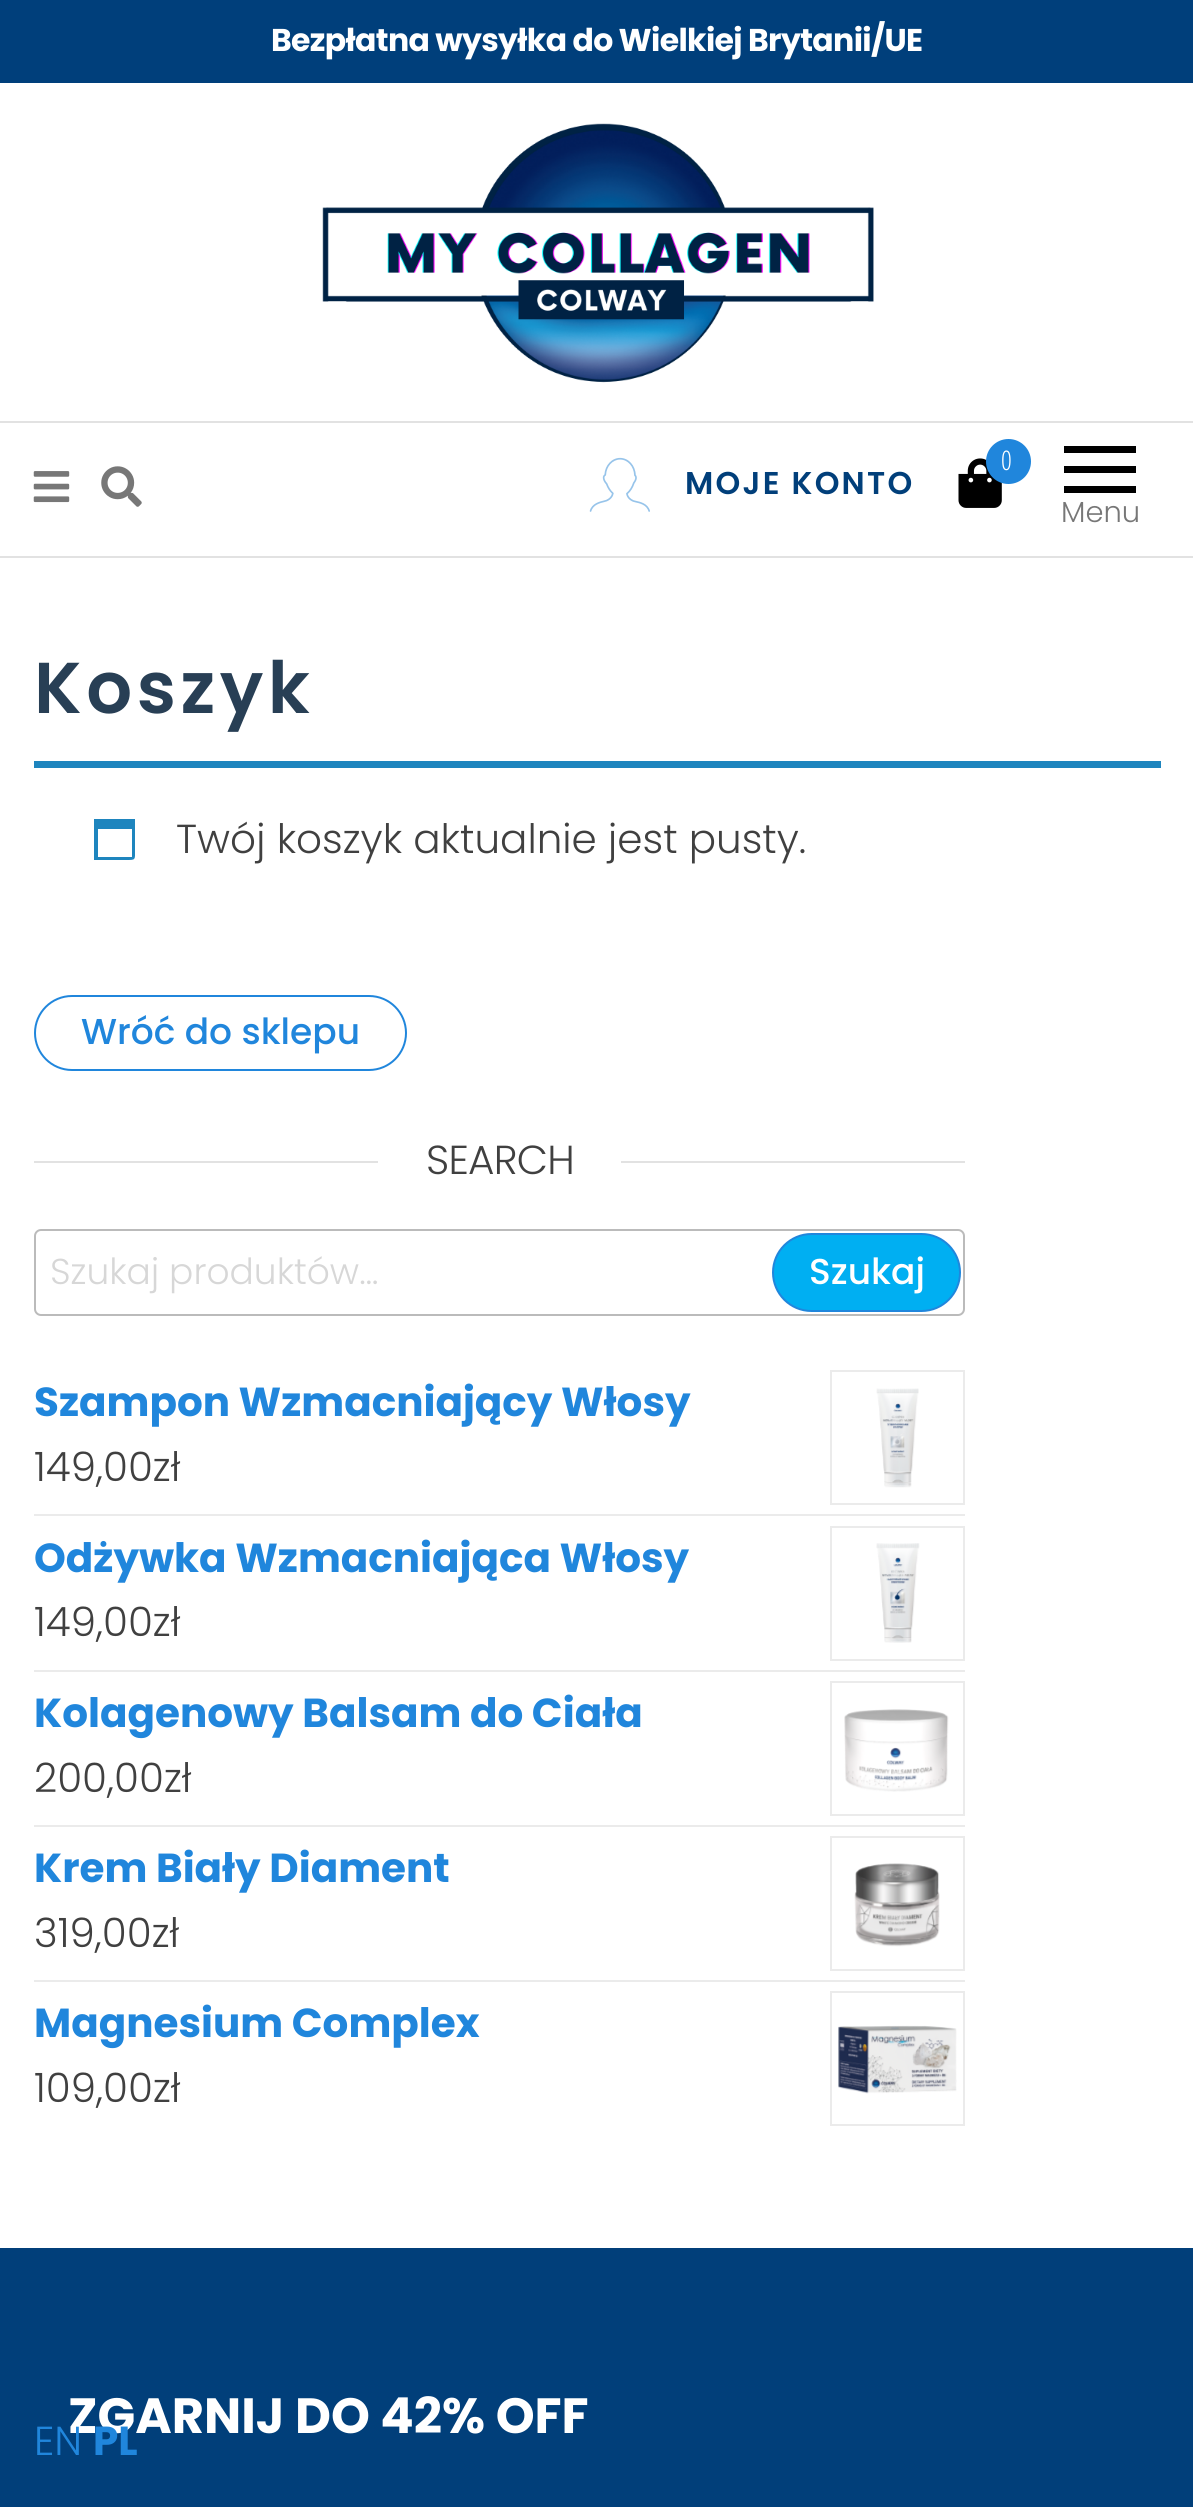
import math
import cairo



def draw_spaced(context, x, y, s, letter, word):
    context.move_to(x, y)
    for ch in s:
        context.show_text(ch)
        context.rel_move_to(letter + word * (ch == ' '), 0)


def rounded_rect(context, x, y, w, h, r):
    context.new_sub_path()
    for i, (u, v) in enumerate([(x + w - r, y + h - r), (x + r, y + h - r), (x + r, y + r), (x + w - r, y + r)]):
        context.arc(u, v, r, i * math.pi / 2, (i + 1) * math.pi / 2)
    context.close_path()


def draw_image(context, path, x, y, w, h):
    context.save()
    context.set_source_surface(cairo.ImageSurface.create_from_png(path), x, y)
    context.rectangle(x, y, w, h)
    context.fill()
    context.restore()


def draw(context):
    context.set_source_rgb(1, 1, 1)
    context.paint()
    context.set_source_rgb(0, 63 / 255, 123 / 255)
    context.rectangle(0, 0, 1193, 83)
    context.fill()
    draw_image(context, "images/1.png", 322, 123, 552, 260)
    context.set_source_rgb(226 / 255, 226 / 255, 226 / 255)
    context.rectangle(0, 421, 1193, 2)
    context.fill()
    context.rectangle(0, 556, 1193, 2)
    context.fill()
    draw_image(context, "images/2.png", 958, 458, 44, 50)
    context.set_source_rgb(32 / 255, 134 / 255, 220 / 255)
    context.arc(1008.5, 461.5, 22.5, 0, 2 * math.pi)
    context.fill()
    context.set_source_rgb(0, 0, 0)
    context.rectangle(1064, 446, 72, 7)
    context.fill()
    context.rectangle(1064, 466, 72, 7)
    context.fill()
    context.rectangle(1064, 486, 72, 7)
    context.fill()
    draw_image(context, "images/3.png", 33, 471, 37, 32)
    draw_image(context, "images/4.png", 101, 466, 41, 41)
    draw_image(context, "images/5.png", 589, 457, 61, 55)
    context.set_source_rgb(30 / 255, 133 / 255, 190 / 255)
    context.rectangle(34, 761, 1127, 7)
    context.fill()
    context.new_path()
    context.move_to(132, 829)
    context.line_to(98, 829)
    context.line_to(98, 857)
    context.line_to(132, 857)
    context.close_path()
    context.move_to(135, 819)
    context.line_to(135, 850)
    context.curve_to(135, 860, 136, 860, 126, 860)
    context.line_to(94, 860)
    context.line_to(94, 819)
    context.close_path()
    context.fill()
    rounded_rect(context, 35, 996, 371, 74, 37)
    context.set_source_rgb(32 / 255, 134 / 255, 220 / 255)
    context.stroke()
    context.set_source_rgb(226 / 255, 226 / 255, 226 / 255)
    context.rectangle(34, 1161, 931, 2)
    context.fill()
    context.set_source_rgb(1, 1, 1)
    context.rectangle(378, 1161, 243, 2)
    context.fill()
    rounded_rect(context, 35, 1230, 929, 85, 6)
    context.set_source_rgb(187 / 255, 187 / 255, 187 / 255)
    context.stroke()
    context.set_source_rgb(0, 175 / 255, 242 / 255)
    rounded_rect(context, 773, 1234, 187, 77, 38.5)
    context.fill_preserve()
    context.set_source_rgb(32 / 255, 134 / 255, 220 / 255)
    context.stroke()
    context.set_source_rgb(235 / 255, 235 / 255, 235 / 255)
    context.rectangle(34, 1514, 931, 2)
    context.fill()
    context.rectangle(831, 1371, 133, 133)
    context.stroke()
    draw_image(context, "images/6.png", 876, 1388, 43, 100)
    context.rectangle(34, 1670, 931, 2)
    context.fill()
    context.rectangle(831, 1527, 133, 133)
    context.stroke()
    draw_image(context, "images/7.png", 876, 1543, 44, 100)
    context.rectangle(34, 1825, 931, 2)
    context.fill()
    context.rectangle(831, 1682, 133, 133)
    context.stroke()
    draw_image(context, "images/8.png", 844, 1709, 105, 83)
    context.rectangle(34, 1980, 931, 2)
    context.fill()
    context.rectangle(831, 1837, 133, 133)
    context.stroke()
    draw_image(context, "images/9.png", 854, 1863, 86, 84)
    context.rectangle(831, 1992, 133, 133)
    context.stroke()
    draw_image(context, "images/10.png", 838, 2025, 119, 69)
    context.set_source_rgb(1 / 255, 63 / 255, 122 / 255)
    context.rectangle(0, 2248, 1193, 259)
    context.fill()
    context.select_font_face("Poppins", cairo.FontSlant.NORMAL, cairo.FontWeight.BOLD)
    context.set_font_size(31.5)
    context.set_source_rgb(1, 1, 1)
    draw_spaced(context, 271, 51, "Bezpłatna wysyłka do Wielkiej Brytanii/UE", -0.65, 0)
    context.select_font_face("Open Sans Condensed Light")
    context.set_font_size(27)
    context.move_to(1001, 470)
    context.show_text("0")
    context.select_font_face("Poppins SemiBold")
    context.set_font_size(31.5)
    context.set_source_rgb(1 / 255, 63 / 255, 122 / 255)
    draw_spaced(context, 685, 494, "MOJE KONTO", 2.25, 0)
    context.select_font_face("Poppins Light")
    context.set_font_size(29)
    context.set_source_rgb(119 / 255, 119 / 255, 119 / 255)
    context.move_to(1061, 522)
    context.show_text("Menu")
    context.select_font_face("Poppins SemiBold")
    context.set_font_size(72)
    context.set_source_rgb(40 / 255, 63 / 255, 85 / 255)
    draw_spaced(context, 34, 713, "Koszyk", 4.5, 0)
    context.select_font_face("Poppins Light")
    context.set_font_size(40.5)
    context.set_source_rgb(64 / 255, 64 / 255, 64 / 255)
    context.move_to(176, 853)
    context.show_text("Twój koszyk aktualnie jest pusty.")
    context.select_font_face("Poppins Medium")
    context.set_font_size(36)
    context.set_source_rgb(32 / 255, 134 / 255, 220 / 255)
    context.move_to(81, 1044)
    context.show_text("Wróć do sklepu")
    context.select_font_face("Poppins Light")
    context.set_font_size(40.5)
    context.set_source_rgb(64 / 255, 64 / 255, 64 / 255)
    draw_spaced(context, 426, 1174, "SEARCH", -0.75, 0)
    context.set_font_size(36)
    context.set_source_rgb(215 / 255, 215 / 255, 215 / 255)
    context.move_to(50, 1284)
    context.show_text("Szukaj produktów…")
    context.select_font_face("Poppins Medium")
    context.set_source_rgb(1, 1, 1)
    context.move_to(809, 1284)
    context.show_text("Szukaj")
    context.select_font_face("Poppins", cairo.FontSlant.NORMAL, cairo.FontWeight.BOLD)
    context.set_font_size(40.5)
    context.set_source_rgb(32 / 255, 134 / 255, 220 / 255)
    context.move_to(34, 1416)
    context.show_text("Szampon Wzmacniający Włosy")
    context.select_font_face("Poppins Light")
    context.set_source_rgb(64 / 255, 64 / 255, 64 / 255)
    context.move_to(34, 1481)
    context.show_text("149,00zł")
    context.select_font_face("Poppins", cairo.FontSlant.NORMAL, cairo.FontWeight.BOLD)
    context.set_source_rgb(32 / 255, 134 / 255, 220 / 255)
    context.move_to(34, 1572)
    context.show_text("Odżywka Wzmacniająca Włosy")
    context.select_font_face("Poppins Light")
    context.set_source_rgb(64 / 255, 64 / 255, 64 / 255)
    context.move_to(34, 1636)
    context.show_text("149,00zł")
    context.select_font_face("Poppins", cairo.FontSlant.NORMAL, cairo.FontWeight.BOLD)
    context.set_source_rgb(32 / 255, 134 / 255, 220 / 255)
    context.move_to(34, 1727)
    context.show_text("Kolagenowy Balsam do Ciała")
    context.select_font_face("Poppins Light")
    context.set_source_rgb(64 / 255, 64 / 255, 64 / 255)
    context.move_to(34, 1792)
    context.show_text("200,00zł")
    context.select_font_face("Poppins", cairo.FontSlant.NORMAL, cairo.FontWeight.BOLD)
    context.set_source_rgb(32 / 255, 134 / 255, 220 / 255)
    context.move_to(34, 1882)
    context.show_text("Krem Biały Diament")
    context.select_font_face("Poppins Light")
    context.set_source_rgb(64 / 255, 64 / 255, 64 / 255)
    context.move_to(34, 1947)
    context.show_text("319,00zł")
    context.select_font_face("Poppins", cairo.FontSlant.NORMAL, cairo.FontWeight.BOLD)
    context.set_source_rgb(32 / 255, 134 / 255, 220 / 255)
    context.move_to(34, 2037)
    context.show_text("Magnesium Complex")
    context.select_font_face("Poppins Light")
    context.set_source_rgb(64 / 255, 64 / 255, 64 / 255)
    context.move_to(34, 2102)
    context.show_text("109,00zł")
    context.select_font_face("Poppins", cairo.FontSlant.NORMAL, cairo.FontWeight.BOLD)
    context.set_font_size(49.5)
    context.set_source_rgb(1, 1, 1)
    context.move_to(68, 2433)
    context.show_text("ZGARNIJ DO 42% OFF")
    context.select_font_face("Poppins Light")
    context.set_font_size(40.5)
    context.set_source_rgb(32 / 255, 134 / 255, 220 / 255)
    context.move_to(34, 2455)
    context.show_text("EN")
    context.select_font_face("Poppins", cairo.FontSlant.NORMAL, cairo.FontWeight.BOLD)
    context.move_to(93, 2455)
    context.show_text("PL")


surface = cairo.ImageSurface(cairo.Format.RGB24, 1193, 2507)
context = cairo.Context(surface)
options = cairo.FontOptions()
options.set_hint_metrics(cairo.HintMetrics.OFF)
options.set_hint_style(cairo.HintStyle.NONE)
context.set_font_options(options)
context.set_miter_limit(4)
draw(context)
surface.write_to_png("out.png")
